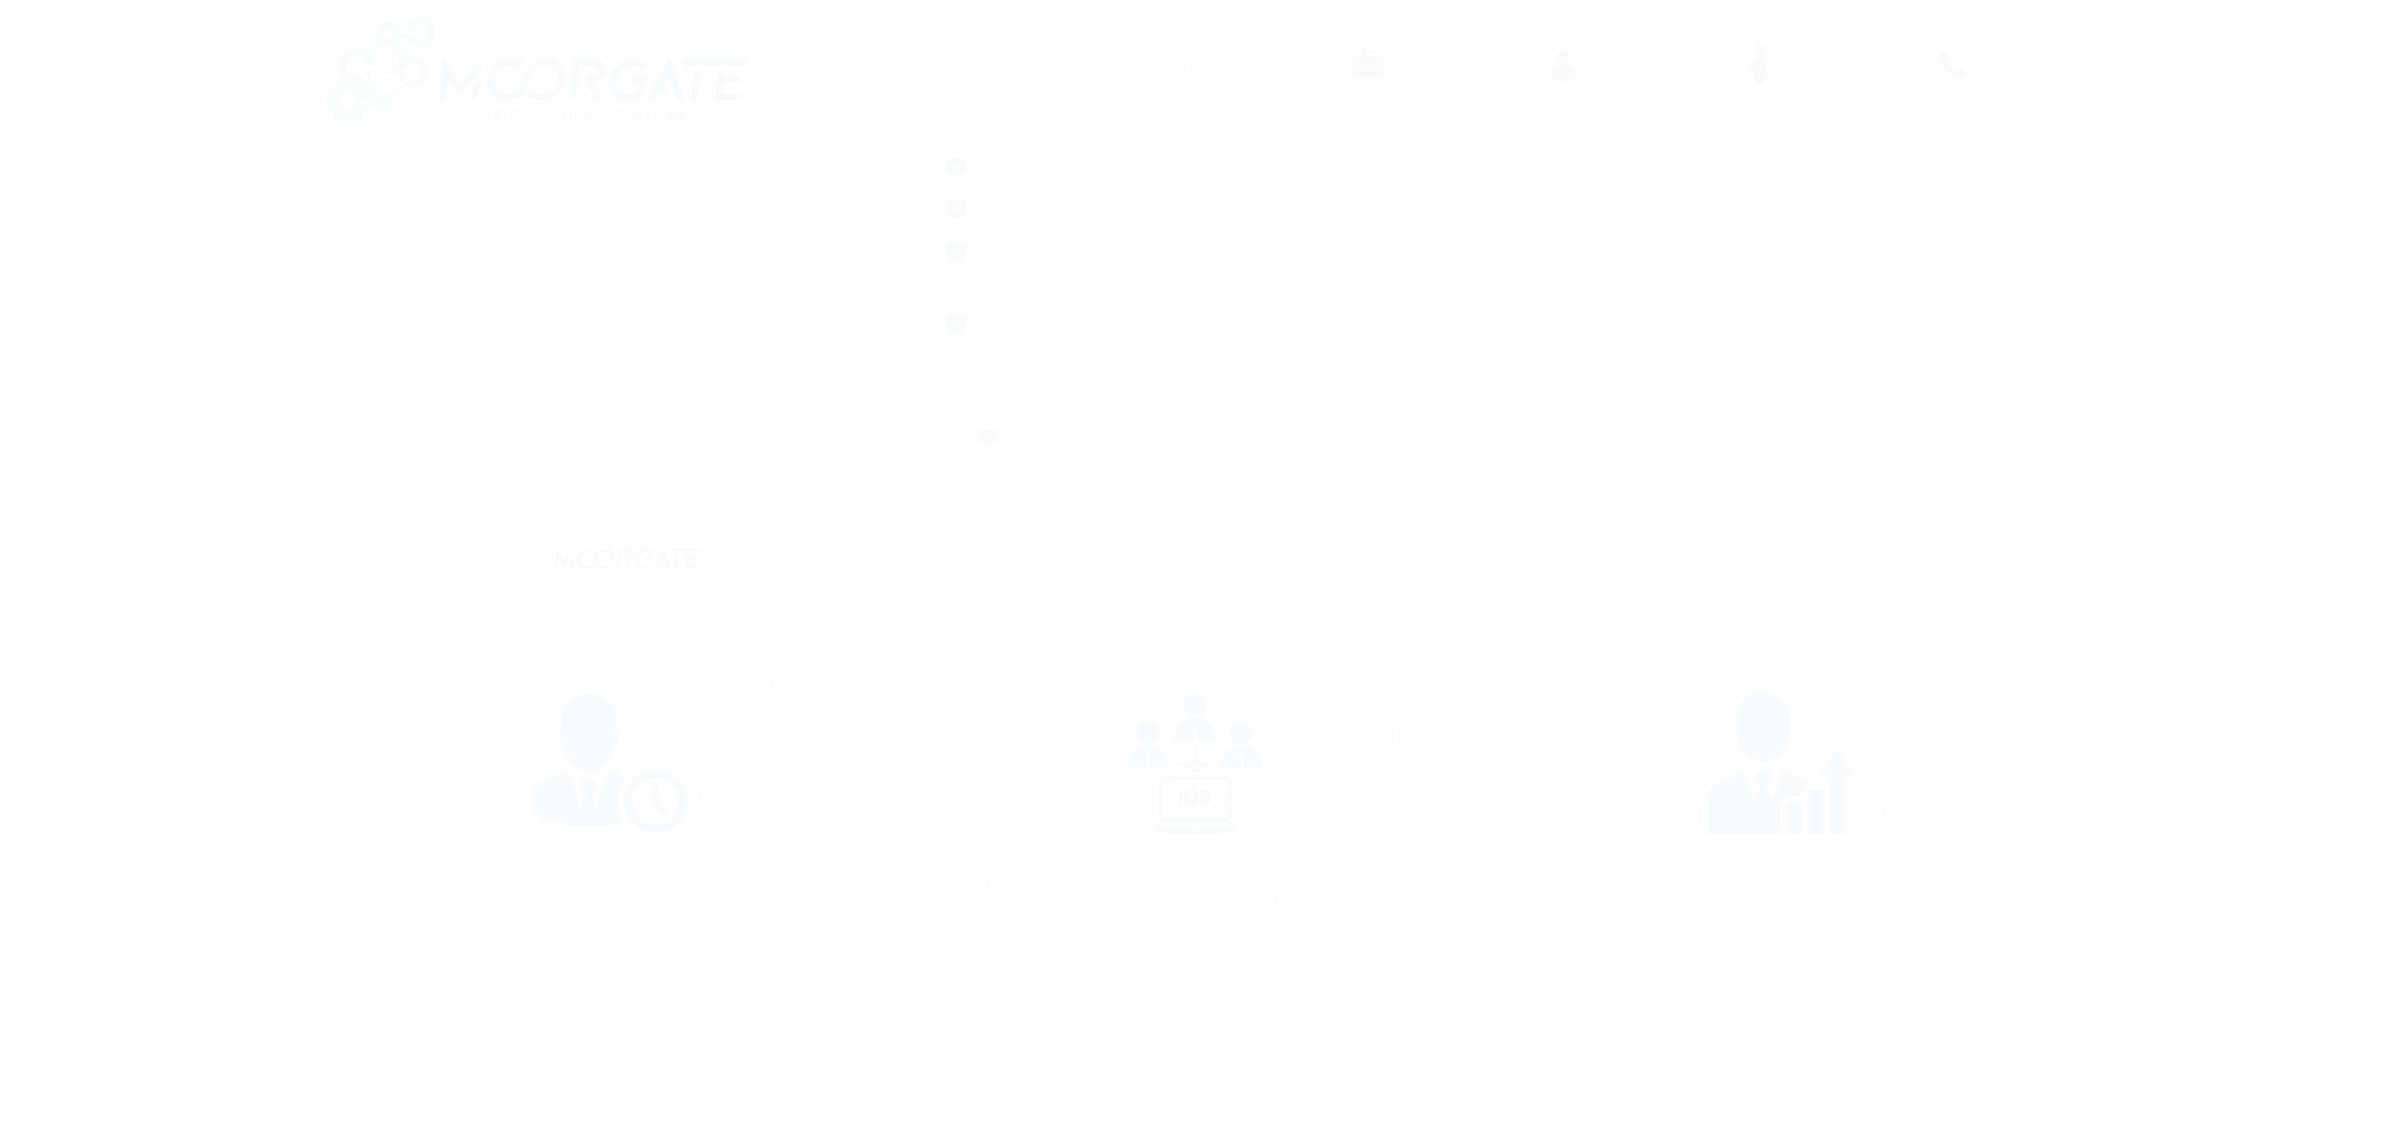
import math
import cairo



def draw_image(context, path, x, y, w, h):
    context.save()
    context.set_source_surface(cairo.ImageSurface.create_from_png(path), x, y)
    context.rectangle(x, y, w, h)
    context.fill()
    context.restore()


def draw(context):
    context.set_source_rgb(1, 1, 1)
    context.paint()
    draw_image(context, "images/1.png", 1079, 150, 1308, 998)
    context.new_path()
    context.move_to(0, 149)
    context.line_to(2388, 149)
    context.set_source_rgb(251 / 255, 251 / 255, 251 / 255)
    context.set_line_width(1.5)
    context.set_dash([1.5, 1.5])
    context.stroke()
    draw_image(context, "images/2.png", 323, 15, 430, 117)
    draw_image(context, "images/3.png", 1154, 47, 38, 37)
    draw_image(context, "images/4.png", 1352, 48, 34, 33)
    draw_image(context, "images/5.png", 1550, 47, 28, 35)
    draw_image(context, "images/6.png", 1748, 44, 22, 43)
    draw_image(context, "images/7.png", 1937, 49, 32, 32)
    draw_image(context, "images/8.png", 190, 150, 124, 35)
    draw_image(context, "images/9.png", 946, 157, 20, 20)
    draw_image(context, "images/10.png", 946, 200, 20, 20)
    draw_image(context, "images/10.png", 946, 242, 20, 20)
    draw_image(context, "images/10.png", 946, 314, 20, 20)
    draw_image(context, "images/11.png", 978, 428, 20, 16)
    context.set_source_rgb(250 / 255, 252 / 255, 253 / 255)
    context.rectangle(734, 558, 1315, 2)
    context.fill()
    context.set_source_rgba(1, 1, 1, 0.7)
    context.rectangle(734, 558, 1315, 2)
    context.fill()
    draw_image(context, "images/12.png", 553, 547, 151, 23)
    draw_image(context, "images/13.png", 339, 605, 540, 374)
    draw_image(context, "images/14.png", 531, 692, 158, 142)
    draw_image(context, "images/15.png", 924, 605, 540, 374)
    draw_image(context, "images/16.png", 1125, 692, 139, 142)
    draw_image(context, "images/17.png", 1509, 605, 540, 374)
    draw_image(context, "images/18.png", 1705, 692, 149, 143)
    context.set_source_rgb(252 / 255, 252 / 255, 252 / 255)
    context.rectangle(1767, 1127, 111, 2)
    context.fill()
    context.rectangle(1890, 1127, 27, 2)
    context.fill()


surface = cairo.ImageSurface(cairo.Format.RGB24, 2387, 1148)
context = cairo.Context(surface)
options = cairo.FontOptions()
options.set_hint_metrics(cairo.HintMetrics.OFF)
options.set_hint_style(cairo.HintStyle.NONE)
context.set_font_options(options)
context.set_miter_limit(4)
draw(context)
surface.write_to_png("out.png")
